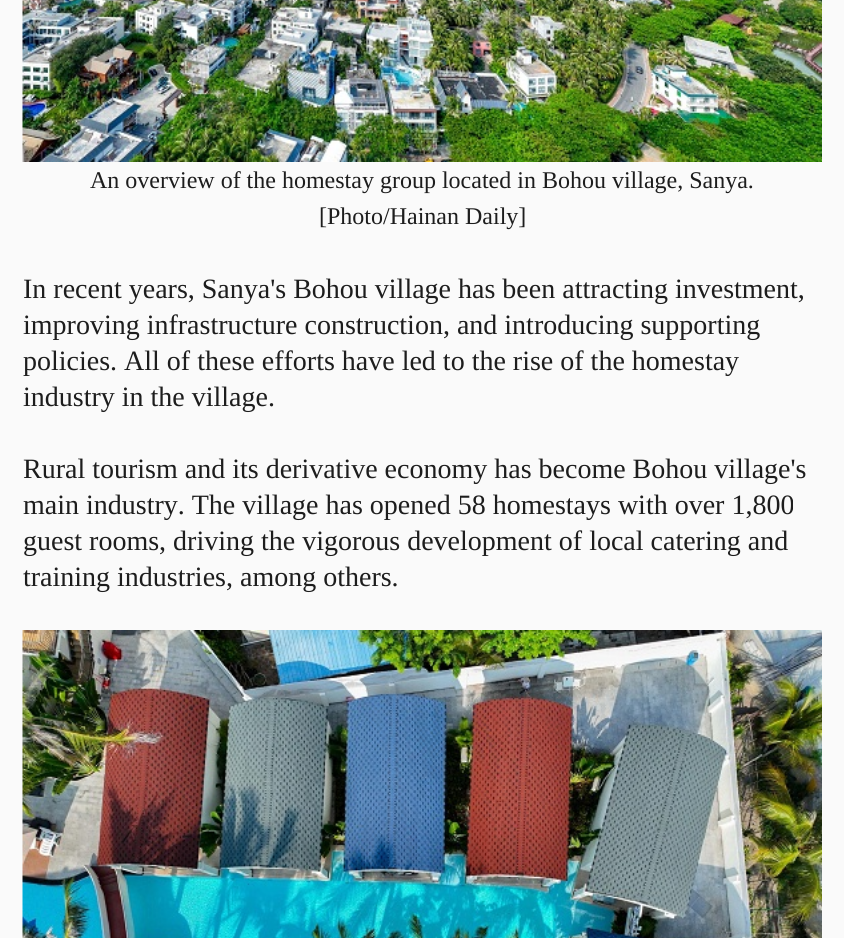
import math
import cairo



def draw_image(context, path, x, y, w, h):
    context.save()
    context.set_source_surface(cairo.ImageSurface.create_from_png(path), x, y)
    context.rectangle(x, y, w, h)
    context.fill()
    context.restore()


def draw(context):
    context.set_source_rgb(250 / 255, 250 / 255, 250 / 255)
    context.paint()
    draw_image(context, "images/1.png", 22, 0, 800, 162)
    draw_image(context, "images/2.png", 22, 630, 800, 308)
    context.select_font_face("Liberation Serif")
    context.set_font_size(24)
    context.set_source_rgb(29 / 255, 29 / 255, 29 / 255)
    context.move_to(90, 188)
    context.show_text("An overview of the homestay group located in Bohou village, Sanya.")
    context.move_to(319, 224)
    context.show_text("[Photo/Hainan Daily]")
    context.set_font_size(28)
    context.move_to(23, 298)
    context.show_text("In recent years, Sanya's Bohou village has been attracting investment,")
    context.move_to(23, 334)
    context.show_text("improving infrastructure construction, and introducing supporting")
    context.move_to(23, 370)
    context.show_text("policies. All of these efforts have led to the rise of the homestay")
    context.move_to(23, 406)
    context.show_text("industry in the village.")
    context.move_to(23, 478)
    context.show_text("Rural tourism and its derivative economy has become Bohou village's")
    context.move_to(23, 514)
    context.show_text("main industry. The village has opened 58 homestays with over 1,800")
    context.move_to(23, 550)
    context.show_text("guest rooms, driving the vigorous development of local catering and")
    context.move_to(23, 586)
    context.show_text("training industries, among others.")


surface = cairo.ImageSurface(cairo.Format.RGB24, 844, 938)
context = cairo.Context(surface)
options = cairo.FontOptions()
options.set_hint_metrics(cairo.HintMetrics.OFF)
options.set_hint_style(cairo.HintStyle.NONE)
context.set_font_options(options)
context.set_miter_limit(4)
draw(context)
surface.write_to_png("out.png")
